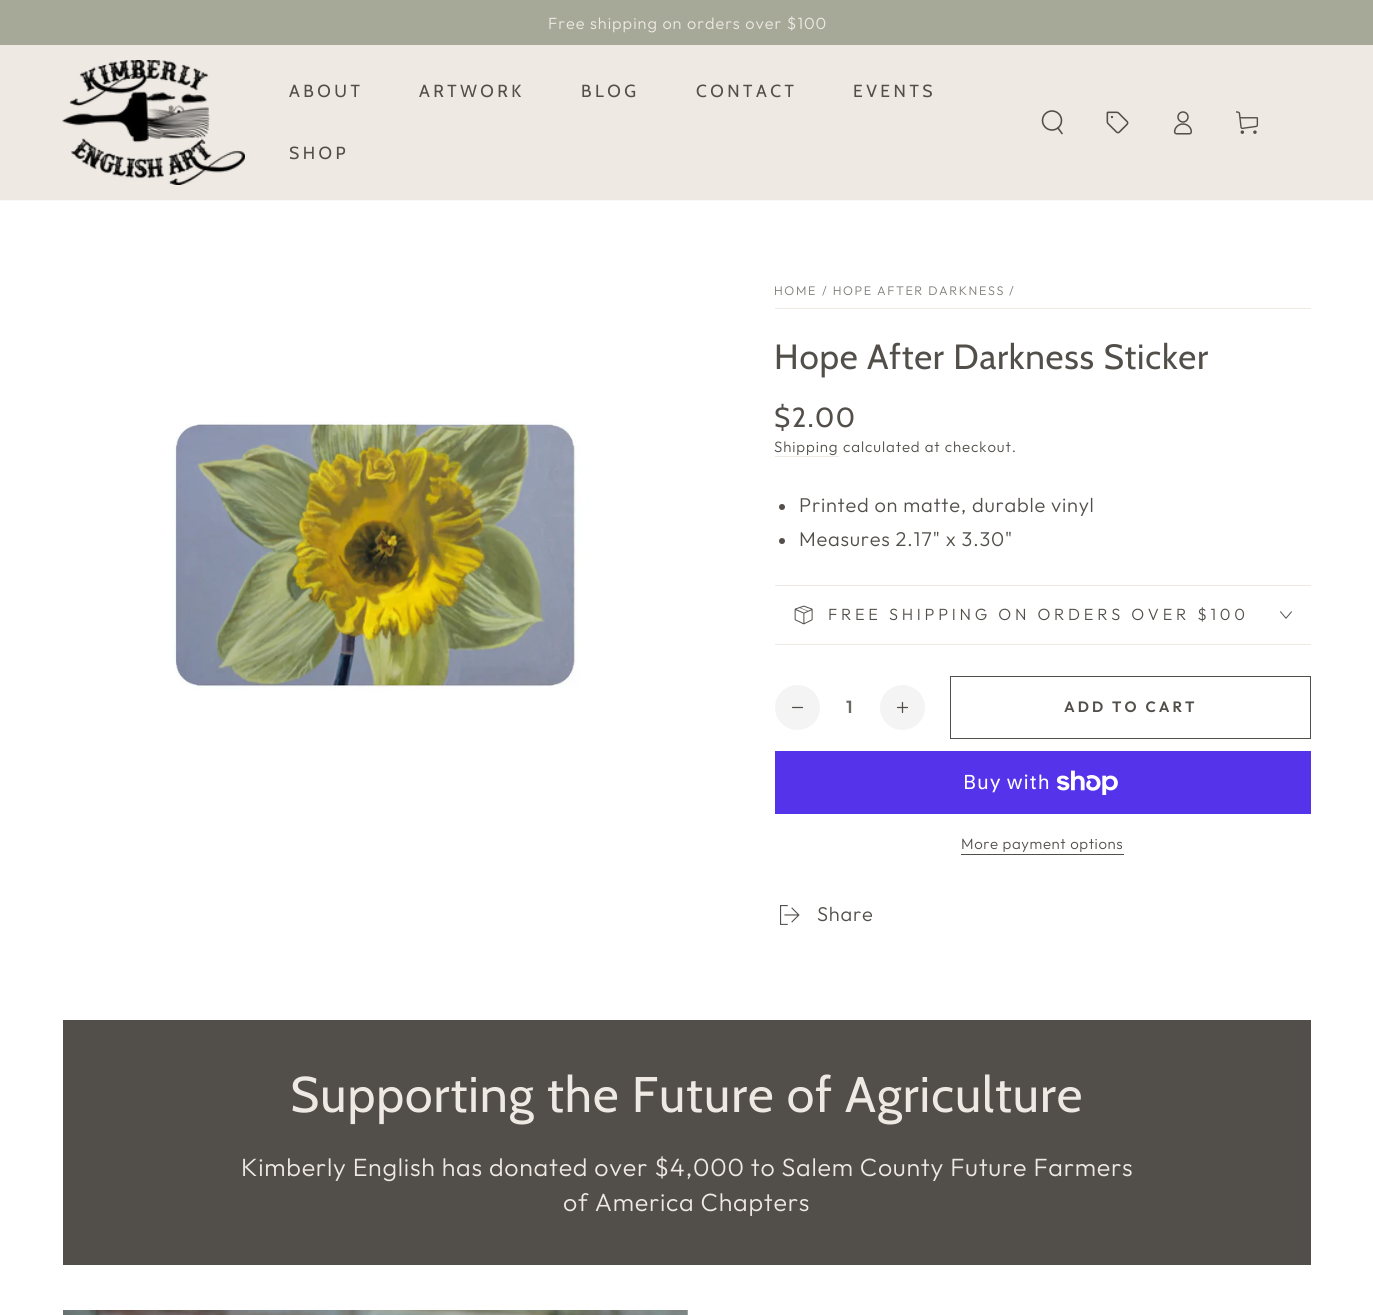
import math
import cairo



def draw_spaced(context, x, y, s, letter, word):
    context.move_to(x, y)
    for ch in s:
        context.show_text(ch)
        context.rel_move_to(letter + word * (ch == ' '), 0)


def draw_image(context, path, x, y, w, h):
    context.save()
    context.set_source_surface(cairo.ImageSurface.create_from_png(path), x, y)
    context.rectangle(x, y, w, h)
    context.fill()
    context.restore()


def draw(context):
    context.set_source_rgb(1, 1, 1)
    context.paint()
    context.set_source_rgb(166 / 255, 169 / 255, 152 / 255)
    context.rectangle(0, 0, 1373, 45)
    context.fill()
    context.set_source_rgb(250 / 255, 248 / 255, 247 / 255)
    context.new_path()
    context.move_to(0, 200)
    context.line_to(0, 201)
    context.line_to(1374, 201)
    context.line_to(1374, 46)
    context.line_to(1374, 200)
    context.close_path()
    context.fill()
    context.set_source_rgb(238 / 255, 233 / 255, 227 / 255)
    context.rectangle(0, 45, 1373, 155)
    context.fill()
    draw_image(context, "images/1.png", 62, 60, 183, 125)
    context.arc(1052, 120.5, 9.5, 0, 2 * math.pi)
    context.set_source_rgb(82 / 255, 79 / 255, 74 / 255)
    context.set_line_width(1.6)
    context.stroke()
    context.new_path()
    context.move_to(1058, 128)
    context.line_to(1062, 133.5)
    context.set_line_cap(cairo.LineCap.ROUND)
    context.stroke()
    draw_image(context, "images/2.png", 1106, 111, 23, 23)
    draw_image(context, "images/3.png", 1173, 111, 20, 24)
    draw_image(context, "images/4.png", 1236, 111, 23, 23)
    draw_image(context, "images/5.png", 63, 245, 625, 625)
    context.set_source_rgb(238 / 255, 233 / 255, 227 / 255)
    context.rectangle(775, 308, 536, 1)
    context.fill()
    context.rectangle(775, 456, 64, 1)
    context.fill()
    context.set_source_rgb(82 / 255, 79 / 255, 74 / 255)
    context.arc(782, 507, 3, 0, 2 * math.pi)
    context.fill()
    context.arc(782, 541, 3, 0, 2 * math.pi)
    context.fill()
    context.set_source_rgb(238 / 255, 233 / 255, 227 / 255)
    context.rectangle(775, 585, 536, 1)
    context.fill()
    context.rectangle(775, 644, 536, 1)
    context.fill()
    draw_image(context, "images/6.png", 794, 605, 19, 20)
    draw_image(context, "images/7.png", 1280, 611, 12, 8)
    context.set_source_rgb(245 / 255, 244 / 255, 244 / 255)
    context.arc(797.5, 707.5, 22.5, 0, 2 * math.pi)
    context.fill()
    draw_image(context, "images/8.png", 791, 706, 13, 3)
    context.arc(902.5, 707.5, 22.5, 0, 2 * math.pi)
    context.fill()
    draw_image(context, "images/9.png", 896, 701, 13, 13)
    context.rectangle(950.5, 676.5, 360, 62)
    context.set_source_rgb(82 / 255, 79 / 255, 74 / 255)
    context.set_line_width(1)
    context.set_line_cap(cairo.LineCap.BUTT)
    context.stroke()
    context.set_source_rgb(84 / 255, 51 / 255, 235 / 255)
    context.rectangle(775, 751, 536, 63)
    context.fill()
    draw_image(context, "images/10.png", 1056, 770, 62, 25)
    context.set_source_rgb(82 / 255, 79 / 255, 74 / 255)
    context.rectangle(961, 854, 163, 1)
    context.fill()
    draw_image(context, "images/11.png", 780, 905, 20, 20)
    context.rectangle(63, 1020, 1248, 245)
    context.fill()
    draw_image(context, "images/12.png", 63, 1310, 625, 5)
    context.select_font_face("Outfit Light")
    context.set_font_size(16.25)
    context.set_source_rgb(238 / 255, 233 / 255, 227 / 255)
    draw_spaced(context, 548, 29, "Free shipping on orders over $100", 1, 0)
    context.select_font_face("Cabin")
    context.set_font_size(17.5)
    context.set_source_rgb(82 / 255, 79 / 255, 74 / 255)
    draw_spaced(context, 289, 97, "ABOUT", 3.5, 0)
    draw_spaced(context, 419, 97, "ARTWORK", 3.5, 0)
    draw_spaced(context, 581, 97, "BLOG", 3.5, 0)
    draw_spaced(context, 696, 97, "CONTACT", 3.5, 0)
    draw_spaced(context, 853, 97, "EVENTS", 3.5, 0)
    draw_spaced(context, 289, 159, "SHOP", 3.5, 0)
    context.select_font_face("Outfit Light")
    context.set_font_size(12.5)
    context.set_source_rgb(125 / 255, 123 / 255, 119 / 255)
    draw_spaced(context, 774, 295, "HOME", 1.6, 0)
    draw_spaced(context, 822, 295, "/ HOPE AFTER DARKNESS", 1.6, 0)
    draw_spaced(context, 1009, 295, "/", 1.6, 0)
    context.select_font_face("Cabin")
    context.set_font_size(35)
    context.set_source_rgb(82 / 255, 79 / 255, 74 / 255)
    draw_spaced(context, 774, 369, "Hope After Darkness Sticker", 0.75, 0)
    context.set_font_size(27.5)
    draw_spaced(context, 774, 427, "$2.00", 1.6, 0)
    context.select_font_face("Outfit Light")
    context.set_font_size(15)
    draw_spaced(context, 774, 452, "Shipping", 0.9, 0)
    draw_spaced(context, 843, 452, "calculated at checkout.", 0.9, 0)
    context.set_font_size(20)
    draw_spaced(context, 799, 512, "Printed on matte, durable vinyl", 0.75, 0)
    draw_spaced(context, 799, 546, "Measures 2.17\" x 3.30\"", 0.75, 0)
    context.set_font_size(16.25)
    draw_spaced(context, 828, 620, "FREE SHIPPING ON ORDERS OVER $100", 3.75, 0)
    context.select_font_face("Outfit SemiBold")
    context.set_font_size(17.5)
    context.set_source_rgb(108 / 255, 105 / 255, 101 / 255)
    context.move_to(846, 713)
    context.show_text("1")
    context.set_font_size(15)
    context.set_source_rgb(82 / 255, 79 / 255, 74 / 255)
    draw_spaced(context, 1064, 712, "ADD TO CART", 3, 0)
    context.select_font_face("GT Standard")
    context.set_font_size(20)
    context.set_source_rgb(1, 1, 1)
    draw_spaced(context, 963, 789, "Buy with", 0.75, 0)
    context.select_font_face("Outfit Light")
    context.set_font_size(15)
    context.set_source_rgb(82 / 255, 79 / 255, 74 / 255)
    draw_spaced(context, 961, 849, "More payment options", 0.6, 0)
    context.set_font_size(20)
    draw_spaced(context, 817, 921, "Share", 0.75, 0)
    context.select_font_face("Cabin")
    context.set_font_size(50)
    context.set_source_rgb(238 / 255, 233 / 255, 227 / 255)
    draw_spaced(context, 290, 1112, "Supporting the Future of Agriculture", 1, 0)
    context.select_font_face("Outfit Light")
    context.set_font_size(25)
    draw_spaced(context, 241, 1176, "Kimberly English has donated over $4,000 to Salem County Future Farmers", 0.75, 0)
    draw_spaced(context, 563, 1211, "of America Chapters", 0.75, 0)


surface = cairo.ImageSurface(cairo.Format.RGB24, 1373, 1315)
context = cairo.Context(surface)
options = cairo.FontOptions()
options.set_hint_metrics(cairo.HintMetrics.OFF)
options.set_hint_style(cairo.HintStyle.NONE)
context.set_font_options(options)
context.set_miter_limit(4)
draw(context)
surface.write_to_png("out.png")
